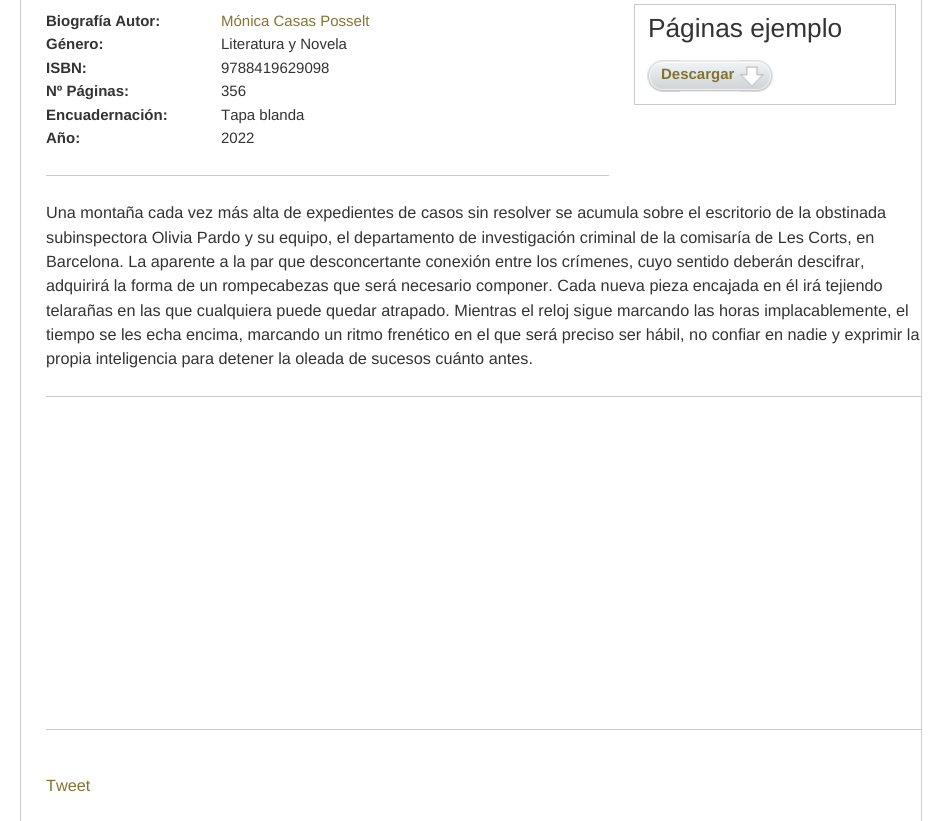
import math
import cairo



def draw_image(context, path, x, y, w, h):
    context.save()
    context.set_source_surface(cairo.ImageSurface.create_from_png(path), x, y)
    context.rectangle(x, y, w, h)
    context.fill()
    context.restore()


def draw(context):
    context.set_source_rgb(1, 1, 1)
    context.paint()
    context.set_source_rgb(204 / 255, 204 / 255, 204 / 255)
    context.rectangle(921, 0, 1, 821)
    context.fill()
    context.rectangle(20, 0, 1, 821)
    context.fill()
    context.set_source_rgb(200 / 255, 200 / 255, 200 / 255)
    context.rectangle(46, 175, 563, 1)
    context.fill()
    context.rectangle(634.5, 4.5, 261, 100)
    context.set_line_width(1)
    context.stroke()
    draw_image(context, "images/1.png", 647, 60, 33, 32)
    draw_image(context, "images/2.png", 740, 60, 33, 32)
    draw_image(context, "images/3.png", 661, 60, 79, 32)
    context.rectangle(46, 396, 875, 1)
    context.fill()
    context.rectangle(46, 729, 875, 1)
    context.fill()
    context.select_font_face("Liberation Sans", cairo.FontSlant.NORMAL, cairo.FontWeight.BOLD)
    context.set_font_size(15)
    context.set_source_rgb(51 / 255, 51 / 255, 51 / 255)
    context.move_to(46, 26)
    context.show_text("Biografía Autor:")
    context.select_font_face("Liberation Sans")
    context.set_source_rgb(130 / 255, 116 / 255, 48 / 255)
    context.move_to(221, 26)
    context.show_text("Mónica Casas Posselt")
    context.select_font_face("Liberation Sans", cairo.FontSlant.NORMAL, cairo.FontWeight.BOLD)
    context.set_source_rgb(51 / 255, 51 / 255, 51 / 255)
    context.move_to(46, 49)
    context.show_text("Género:")
    context.select_font_face("Liberation Sans")
    context.move_to(221, 49)
    context.show_text("Literatura y Novela")
    context.select_font_face("Liberation Sans", cairo.FontSlant.NORMAL, cairo.FontWeight.BOLD)
    context.move_to(46, 73)
    context.show_text("ISBN:")
    context.select_font_face("Liberation Sans")
    context.move_to(221, 73)
    context.show_text("9788419629098")
    context.select_font_face("Liberation Sans", cairo.FontSlant.NORMAL, cairo.FontWeight.BOLD)
    context.move_to(46, 96)
    context.show_text("Nº Páginas:")
    context.select_font_face("Liberation Sans")
    context.move_to(221, 96)
    context.show_text("356")
    context.select_font_face("Liberation Sans", cairo.FontSlant.NORMAL, cairo.FontWeight.BOLD)
    context.move_to(46, 120)
    context.show_text("Encuadernación:")
    context.select_font_face("Liberation Sans")
    context.move_to(221, 120)
    context.show_text("Tapa blanda")
    context.select_font_face("Liberation Sans", cairo.FontSlant.NORMAL, cairo.FontWeight.BOLD)
    context.move_to(46, 143)
    context.show_text("Año:")
    context.select_font_face("Liberation Sans")
    context.move_to(221, 143)
    context.show_text("2022")
    context.set_font_size(26.25)
    context.move_to(648, 37)
    context.show_text("Páginas ejemplo")
    context.select_font_face("Liberation Sans", cairo.FontSlant.NORMAL, cairo.FontWeight.BOLD)
    context.set_font_size(15)
    context.set_source_rgb(130 / 255, 116 / 255, 48 / 255)
    context.move_to(661, 79)
    context.show_text("Descargar")
    context.select_font_face("Liberation Sans")
    context.set_font_size(16.25)
    context.set_source_rgb(51 / 255, 51 / 255, 51 / 255)
    context.move_to(46, 218)
    context.show_text("Una montaña cada vez más alta de expedientes de casos sin resolver se acumula sobre el escritorio de la obstinada")
    context.move_to(46, 243)
    context.show_text("subinspectora Olivia Pardo y su equipo, el departamento de investigación criminal de la comisaría de Les Corts, en")
    context.move_to(46, 267)
    context.show_text("Barcelona. La aparente a la par que desconcertante conexión entre los crímenes, cuyo sentido deberán descifrar,")
    context.move_to(46, 291)
    context.show_text("adquirirá la forma de un rompecabezas que será necesario componer. Cada nueva pieza encajada en él irá tejiendo")
    context.move_to(46, 316)
    context.show_text("telarañas en las que cualquiera puede quedar atrapado. Mientras el reloj sigue marcando las horas implacablemente, el")
    context.move_to(46, 340)
    context.show_text("tiempo se les echa encima, marcando un ritmo frenético en el que será preciso ser hábil, no confiar en nadie y exprimir la")
    context.move_to(46, 364)
    context.show_text("propia inteligencia para detener la oleada de sucesos cuánto antes.")
    context.set_source_rgb(130 / 255, 116 / 255, 48 / 255)
    context.move_to(46, 791)
    context.show_text("Tweet")


surface = cairo.ImageSurface(cairo.Format.RGB24, 942, 821)
context = cairo.Context(surface)
options = cairo.FontOptions()
options.set_hint_metrics(cairo.HintMetrics.OFF)
options.set_hint_style(cairo.HintStyle.NONE)
context.set_font_options(options)
context.set_miter_limit(4)
draw(context)
surface.write_to_png("out.png")
